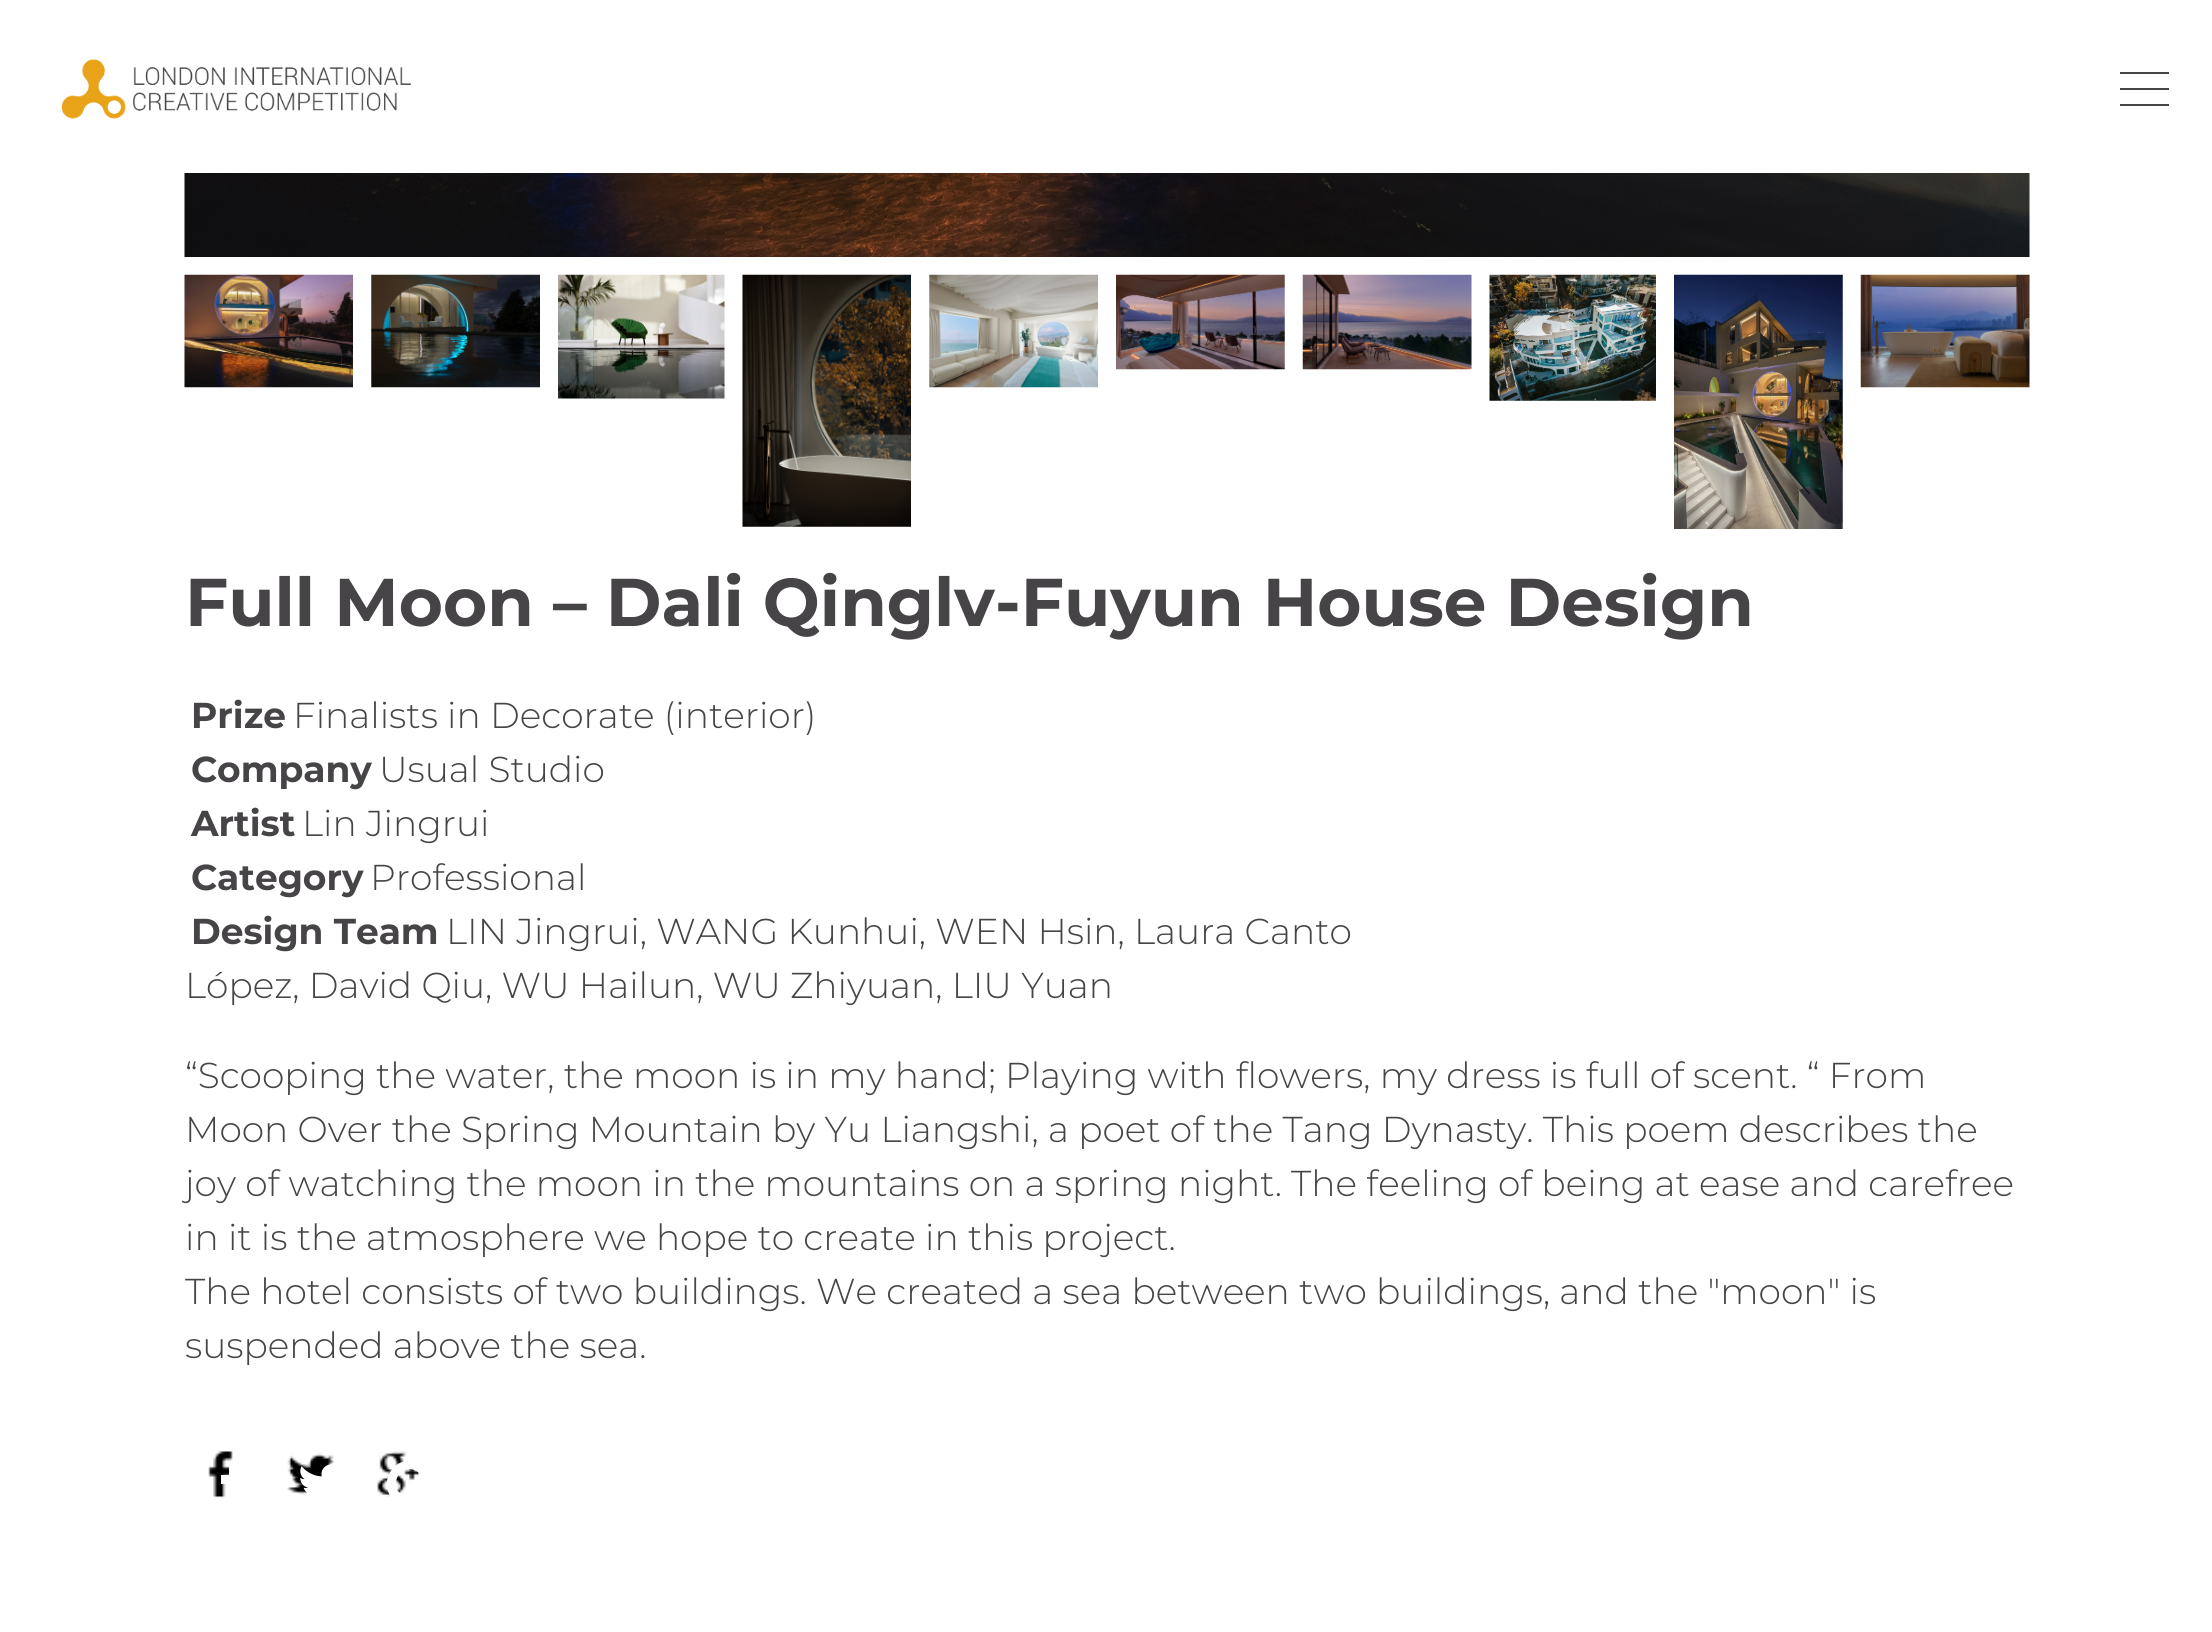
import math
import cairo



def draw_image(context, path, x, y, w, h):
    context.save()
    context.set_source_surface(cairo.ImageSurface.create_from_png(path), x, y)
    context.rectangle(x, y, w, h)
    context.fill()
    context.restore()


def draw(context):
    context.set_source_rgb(1, 1, 1)
    context.paint()
    draw_image(context, "images/1.png", 61, 59, 351, 60)
    context.set_source_rgb(71 / 255, 68 / 255, 72 / 255)
    context.rectangle(2120, 72, 49, 2)
    context.fill()
    context.rectangle(2120, 88, 49, 2)
    context.fill()
    context.rectangle(2120, 104, 49, 2)
    context.fill()
    draw_image(context, "images/2.png", 184, 173, 1846, 84)
    draw_image(context, "images/3.png", 184, 274, 169, 114)
    draw_image(context, "images/4.png", 371, 274, 169, 114)
    draw_image(context, "images/5.png", 558, 274, 167, 125)
    draw_image(context, "images/6.png", 742, 274, 169, 253)
    draw_image(context, "images/7.png", 929, 274, 169, 114)
    draw_image(context, "images/8.png", 1116, 274, 169, 96)
    draw_image(context, "images/9.png", 1302, 274, 170, 96)
    draw_image(context, "images/10.png", 1489, 274, 167, 127)
    draw_image(context, "images/11.png", 1674, 274, 169, 255)
    draw_image(context, "images/12.png", 1860, 274, 170, 114)
    draw_image(context, "images/13.png", 208, 1451, 25, 47)
    context.set_source_rgb(1, 1, 1)
    context.new_path()
    context.move_to(247, 1457)
    context.line_to(247, 1465)
    context.curve_to(237, 1465, 238, 1465, 238, 1475)
    context.line_to(247, 1475)
    context.line_to(246, 1484)
    context.line_to(238, 1484)
    context.line_to(238, 1507)
    context.line_to(229, 1507)
    context.line_to(229, 1484)
    context.line_to(221, 1484)
    context.line_to(221, 1475)
    context.line_to(229, 1475)
    context.line_to(229, 1466)
    context.curve_to(230, 1457, 240, 1456, 247, 1457)
    context.close_path()
    context.fill()
    draw_image(context, "images/14.png", 287, 1453, 47, 42)
    draw_image(context, "images/15.png", 300, 1464, 32, 29)
    draw_image(context, "images/16.png", 377, 1451, 43, 46)
    context.new_path()
    context.move_to(410, 1480)
    context.line_to(432, 1480)
    context.curve_to(438, 1512, 390, 1516, 387, 1486)
    context.curve_to(386, 1480, 389, 1473, 393, 1468)
    context.curve_to(401, 1459, 416, 1458, 426, 1467)
    context.line_to(419, 1473)
    context.curve_to(414, 1468, 407, 1468, 401, 1472)
    context.curve_to(398, 1475, 396, 1479, 396, 1483)
    context.curve_to(395, 1500, 421, 1504, 423, 1488)
    context.line_to(410, 1488)
    context.close_path()
    context.fill()
    context.select_font_face("Montserrat", cairo.FontSlant.NORMAL, cairo.FontWeight.BOLD)
    context.set_font_size(67.5)
    context.set_source_rgb(71 / 255, 68 / 255, 72 / 255)
    context.move_to(185, 626)
    context.show_text("Full Moon – Dali Qinglv-Fuyun House Design")
    context.set_font_size(36)
    context.move_to(191, 728)
    context.show_text("Prize")
    context.select_font_face("Montserrat Light")
    context.move_to(293, 728)
    context.show_text("Finalists in Decorate (interior)")
    context.select_font_face("Montserrat", cairo.FontSlant.NORMAL, cairo.FontWeight.BOLD)
    context.move_to(191, 782)
    context.show_text("Company")
    context.select_font_face("Montserrat Light")
    context.move_to(379, 782)
    context.show_text("Usual Studio")
    context.select_font_face("Montserrat", cairo.FontSlant.NORMAL, cairo.FontWeight.BOLD)
    context.move_to(191, 836)
    context.show_text("Artist")
    context.select_font_face("Montserrat Light")
    context.move_to(302, 836)
    context.show_text("Lin Jingrui")
    context.select_font_face("Montserrat", cairo.FontSlant.NORMAL, cairo.FontWeight.BOLD)
    context.move_to(191, 890)
    context.show_text("Category")
    context.select_font_face("Montserrat Light")
    context.move_to(370, 890)
    context.show_text("Professional")
    context.select_font_face("Montserrat", cairo.FontSlant.NORMAL, cairo.FontWeight.BOLD)
    context.move_to(191, 944)
    context.show_text("Design Team")
    context.select_font_face("Montserrat Light")
    context.move_to(446, 944)
    context.show_text("LIN Jingrui, WANG Kunhui, WEN Hsin, Laura Canto")
    context.move_to(185, 998)
    context.show_text("López, David Qiu, WU Hailun, WU Zhiyuan, LIU Yuan")
    context.move_to(185, 1088)
    context.show_text("“Scooping the water, the moon is in my hand; Playing with flowers, my dress is full of scent. “ From")
    context.move_to(185, 1142)
    context.show_text("Moon Over the Spring Mountain by Yu Liangshi, a poet of the Tang Dynasty. This poem describes the")
    context.move_to(185, 1196)
    context.show_text("joy of watching the moon in the mountains on a spring night. The feeling of being at ease and carefree")
    context.move_to(185, 1250)
    context.show_text("in it is the atmosphere we hope to create in this project.")
    context.move_to(185, 1304)
    context.show_text("The hotel consists of two buildings. We created a sea between two buildings, and the \"moon\" is")
    context.move_to(185, 1358)
    context.show_text("suspended above the sea.")


surface = cairo.ImageSurface(cairo.Format.RGB24, 2212, 1632)
context = cairo.Context(surface)
options = cairo.FontOptions()
options.set_hint_metrics(cairo.HintMetrics.OFF)
options.set_hint_style(cairo.HintStyle.NONE)
context.set_font_options(options)
context.set_miter_limit(4)
draw(context)
surface.write_to_png("out.png")
